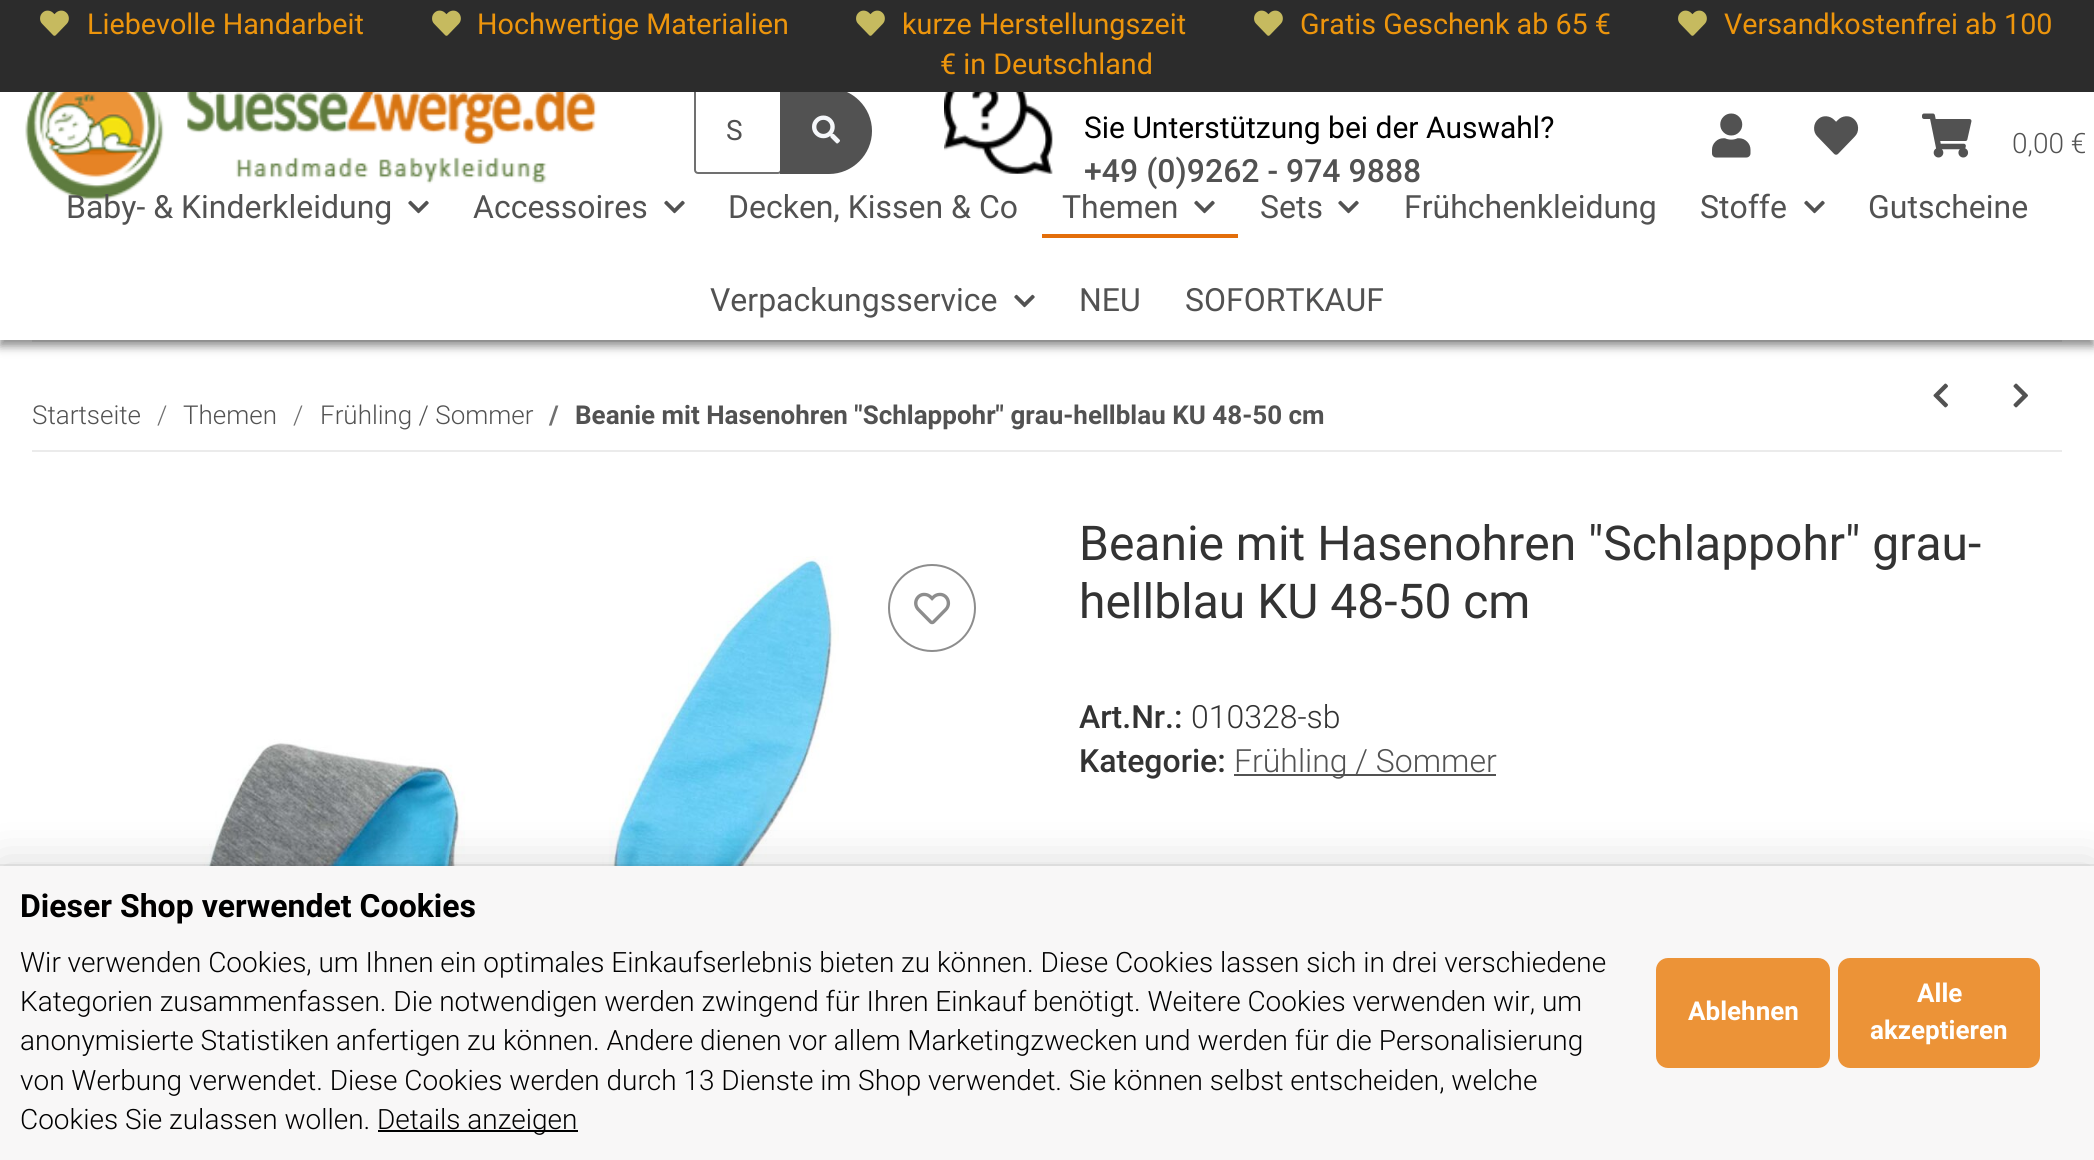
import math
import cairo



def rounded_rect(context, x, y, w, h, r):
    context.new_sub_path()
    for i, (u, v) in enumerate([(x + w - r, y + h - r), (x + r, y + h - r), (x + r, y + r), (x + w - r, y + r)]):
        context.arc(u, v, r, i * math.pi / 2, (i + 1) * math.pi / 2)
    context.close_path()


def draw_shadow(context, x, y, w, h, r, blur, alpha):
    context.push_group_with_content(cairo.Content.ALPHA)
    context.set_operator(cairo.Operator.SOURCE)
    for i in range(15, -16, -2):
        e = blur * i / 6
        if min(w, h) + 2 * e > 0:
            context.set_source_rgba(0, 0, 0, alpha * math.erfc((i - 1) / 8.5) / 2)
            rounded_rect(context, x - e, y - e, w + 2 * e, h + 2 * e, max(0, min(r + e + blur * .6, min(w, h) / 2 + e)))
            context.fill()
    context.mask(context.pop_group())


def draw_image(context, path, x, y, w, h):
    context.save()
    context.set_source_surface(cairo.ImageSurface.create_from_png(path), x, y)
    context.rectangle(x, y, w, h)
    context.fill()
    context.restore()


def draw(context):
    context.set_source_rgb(1, 1, 1)
    context.paint()
    context.set_source_rgb(235 / 255, 235 / 255, 235 / 255)
    context.rectangle(32, 340, 2030, 2)
    context.fill()
    context.set_source_rgb(0, 0, 0)
    draw_shadow(context, 0, 6, 2094, 340, 0, 5, 0.46)
    context.set_source_rgb(1, 1, 1)
    context.rectangle(0, 92, 2094, 248)
    context.fill()
    rounded_rect(context, 695, 89, 86, 84, 3)
    context.set_source_rgb(112 / 255, 112 / 255, 112 / 255)
    context.stroke()
    context.set_source_rgb(82 / 255, 82 / 255, 82 / 255)
    context.new_path()
    context.move_to(781, 89)
    context.line_to(829, 89)
    context.curve_to(852, 89, 871, 108, 871, 131)
    context.curve_to(871, 154, 852, 173, 829, 173)
    context.line_to(781, 173)
    context.close_path()
    context.fill_preserve()
    context.stroke()
    context.set_source_rgb(44 / 255, 44 / 255, 44 / 255)
    context.rectangle(0, 0, 2094, 92)
    context.fill()
    draw_image(context, "images/1.png", 40, 10, 29, 26)
    draw_image(context, "images/1.png", 432, 10, 29, 26)
    draw_image(context, "images/1.png", 856, 10, 29, 26)
    draw_image(context, "images/1.png", 1254, 10, 29, 26)
    draw_image(context, "images/1.png", 1678, 10, 29, 26)
    draw_image(context, "images/2.png", 25, 92, 572, 108)
    draw_image(context, "images/3.png", 812, 115, 28, 29)
    draw_image(context, "images/4.png", 944, 92, 109, 82)
    draw_image(context, "images/5.png", 1712, 113, 39, 45)
    draw_image(context, "images/6.png", 1814, 116, 45, 39)
    draw_image(context, "images/7.png", 1922, 113, 50, 45)
    draw_image(context, "images/8.png", 408, 200, 21, 14)
    draw_image(context, "images/8.png", 664, 200, 21, 14)
    draw_image(context, "images/8.png", 1194, 200, 21, 14)
    context.set_source_rgb(227 / 255, 110 / 255, 10 / 255)
    context.rectangle(1042, 234, 196, 4)
    context.fill()
    draw_image(context, "images/8.png", 1338, 200, 21, 14)
    draw_image(context, "images/8.png", 1804, 200, 21, 14)
    draw_image(context, "images/8.png", 1014, 294, 21, 14)
    context.set_source_rgb(235 / 255, 235 / 255, 235 / 255)
    context.rectangle(32, 450, 2030, 2)
    context.fill()
    draw_image(context, "images/9.png", 1933, 383, 15, 25)
    draw_image(context, "images/10.png", 2013, 383, 15, 25)
    draw_image(context, "images/11.png", 196, 556, 643, 310)
    context.arc(932, 608, 43, 0, 2 * math.pi)
    context.set_source_rgb(141 / 255, 141 / 255, 141 / 255)
    context.stroke()
    draw_image(context, "images/12.png", 914, 592, 37, 33)
    context.set_source_rgb(82 / 255, 82 / 255, 82 / 255)
    context.rectangle(1234, 774, 262, 2)
    context.fill()
    context.rectangle(-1, 865, 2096, 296)
    context.set_source_rgba(0, 0, 0, 0.06)
    context.stroke()
    context.set_source_rgb(0, 0, 0)
    draw_shadow(context, 0, 866, 2094, 294, 0, 24, 0.16)
    context.set_source_rgb(248 / 255, 247 / 255, 247 / 255)
    context.rectangle(0, 866, 2094, 294)
    context.fill()
    context.set_source_rgb(0, 0, 0)
    context.rectangle(378, 1130, 200, 2)
    context.fill()
    context.set_source_rgb(236 / 255, 147 / 255, 55 / 255)
    rounded_rect(context, 1658, 960, 170, 106, 10)
    context.fill_preserve()
    context.set_line_width(4)
    context.stroke()
    rounded_rect(context, 1840, 960, 198, 106, 10)
    context.fill_preserve()
    context.stroke()
    context.select_font_face("Roboto")
    context.set_font_size(28.75)
    context.set_source_rgb(237 / 255, 149 / 255, 12 / 255)
    context.move_to(87, 34)
    context.show_text("Liebevolle Handarbeit")
    context.move_to(477, 34)
    context.show_text("Hochwertige Materialien")
    context.move_to(902, 34)
    context.show_text("kurze Herstellungszeit")
    context.move_to(1300, 34)
    context.show_text("Gratis Geschenk ab 65 €")
    context.move_to(1724, 34)
    context.show_text("Versandkostenfrei ab 100")
    context.move_to(940, 74)
    context.show_text("€ in Deutschland")
    context.set_font_size(28)
    context.set_source_rgb(82 / 255, 82 / 255, 82 / 255)
    context.move_to(726, 140)
    context.show_text("S")
    context.set_font_size(30)
    context.set_source_rgb(0, 0, 0)
    context.move_to(1084, 138)
    context.show_text("Sie Unterstützung bei der Auswahl?")
    context.select_font_face("Roboto Medium")
    context.set_font_size(32)
    context.set_source_rgb(82 / 255, 82 / 255, 82 / 255)
    context.move_to(1084, 182)
    context.show_text("+49 (0)9262 - 974 9888")
    context.select_font_face("Roboto Light")
    context.set_font_size(28)
    context.move_to(2012, 153)
    context.show_text("0,00 €")
    context.select_font_face("Roboto")
    context.set_font_size(32)
    context.move_to(66, 218)
    context.show_text("Baby- & Kinderkleidung")
    context.move_to(473, 218)
    context.show_text("Accessoires")
    context.move_to(728, 218)
    context.show_text("Decken, Kissen & Co")
    context.move_to(1062, 218)
    context.show_text("Themen")
    context.move_to(1260, 218)
    context.show_text("Sets")
    context.move_to(1404, 218)
    context.show_text("Frühchenkleidung")
    context.move_to(1700, 218)
    context.show_text("Stoffe")
    context.move_to(1868, 218)
    context.show_text("Gutscheine")
    context.move_to(710, 311)
    context.show_text("Verpackungsservice")
    context.move_to(1079, 311)
    context.show_text("NEU")
    context.move_to(1185, 311)
    context.show_text("SOFORTKAUF")
    context.select_font_face("Roboto Light")
    context.set_font_size(26)
    context.move_to(32, 424)
    context.show_text("Startseite")
    context.set_source_rgb(112 / 255, 112 / 255, 112 / 255)
    context.move_to(157, 424)
    context.show_text("/")
    context.set_source_rgb(82 / 255, 82 / 255, 82 / 255)
    context.move_to(183, 424)
    context.show_text("Themen")
    context.set_source_rgb(112 / 255, 112 / 255, 112 / 255)
    context.move_to(293, 424)
    context.show_text("/")
    context.set_source_rgb(82 / 255, 82 / 255, 82 / 255)
    context.move_to(320, 424)
    context.show_text("Frühling / Sommer")
    context.select_font_face("Roboto", cairo.FontSlant.NORMAL, cairo.FontWeight.BOLD)
    context.set_source_rgb(112 / 255, 112 / 255, 112 / 255)
    context.move_to(549, 424)
    context.show_text("/")
    context.set_source_rgb(82 / 255, 82 / 255, 82 / 255)
    context.move_to(575, 424)
    context.show_text("Beanie mit Hasenohren \"Schlappohr\" grau-hellblau KU 48-50 cm")
    context.select_font_face("Roboto")
    context.set_font_size(48)
    context.set_source_rgb(51 / 255, 51 / 255, 51 / 255)
    context.move_to(1079, 560)
    context.show_text("Beanie mit Hasenohren \"Schlappohr\" grau-")
    context.move_to(1079, 618)
    context.show_text("hellblau KU 48-50 cm")
    context.select_font_face("Roboto Medium")
    context.set_font_size(32)
    context.move_to(1079, 728)
    context.show_text("Art.Nr.:")
    context.select_font_face("Roboto Light")
    context.move_to(1191, 728)
    context.show_text("010328-sb")
    context.select_font_face("Roboto Medium")
    context.move_to(1079, 772)
    context.show_text("Kategorie:")
    context.select_font_face("Roboto Light")
    context.set_source_rgb(82 / 255, 82 / 255, 82 / 255)
    context.move_to(1234, 772)
    context.show_text("Frühling / Sommer")
    context.select_font_face("Roboto", cairo.FontSlant.NORMAL, cairo.FontWeight.BOLD)
    context.set_source_rgb(0, 0, 0)
    context.move_to(20, 917)
    context.show_text("Dieser Shop verwendet Cookies")
    context.select_font_face("Roboto Light")
    context.set_font_size(28)
    context.move_to(20, 972)
    context.show_text("Wir verwenden Cookies, um Ihnen ein optimales Einkaufserlebnis bieten zu können. Diese Cookies lassen sich in drei verschiedene")
    context.move_to(20, 1011)
    context.show_text("Kategorien zusammenfassen. Die notwendigen werden zwingend für Ihren Einkauf benötigt. Weitere Cookies verwenden wir, um")
    context.move_to(20, 1050)
    context.show_text("anonymisierte Statistiken anfertigen zu können. Andere dienen vor allem Marketingzwecken und werden für die Personalisierung")
    context.move_to(20, 1090)
    context.show_text("von Werbung verwendet. Diese Cookies werden durch 13 Dienste im Shop verwendet. Sie können selbst entscheiden, welche")
    context.move_to(20, 1129)
    context.show_text("Cookies Sie zulassen wollen.")
    context.move_to(377, 1129)
    context.show_text("Details anzeigen")
    context.select_font_face("Roboto", cairo.FontSlant.NORMAL, cairo.FontWeight.BOLD)
    context.set_font_size(26)
    context.set_source_rgb(1, 1, 1)
    context.move_to(1688, 1020)
    context.show_text("Ablehnen")
    context.move_to(1917, 1002)
    context.show_text("Alle")
    context.move_to(1870, 1039)
    context.show_text("akzeptieren")


surface = cairo.ImageSurface(cairo.Format.RGB24, 2094, 1160)
context = cairo.Context(surface)
options = cairo.FontOptions()
options.set_hint_metrics(cairo.HintMetrics.OFF)
options.set_hint_style(cairo.HintStyle.NONE)
context.set_font_options(options)
context.set_miter_limit(4)
draw(context)
surface.write_to_png("out.png")
